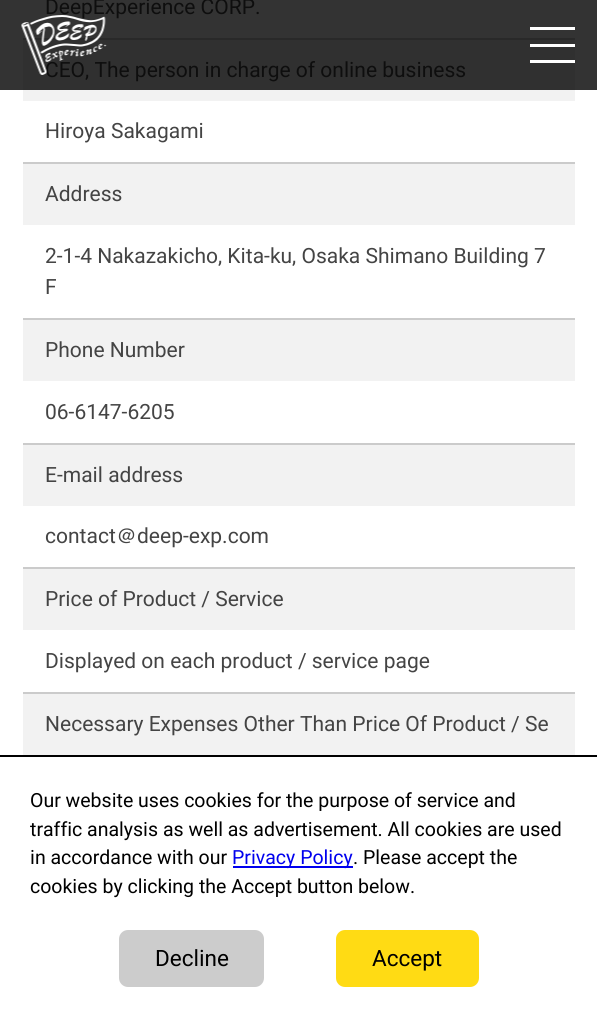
import math
import cairo



def rounded_rect(context, x, y, w, h, r):
    context.new_sub_path()
    for i, (u, v) in enumerate([(x + w - r, y + h - r), (x + r, y + h - r), (x + r, y + r), (x + w - r, y + r)]):
        context.arc(u, v, r, i * math.pi / 2, (i + 1) * math.pi / 2)
    context.close_path()


def draw_image(context, path, x, y, w, h):
    context.save()
    context.set_source_surface(cairo.ImageSurface.create_from_png(path), x, y)
    context.rectangle(x, y, w, h)
    context.fill()
    context.restore()


def draw(context):
    context.set_source_rgb(1, 1, 1)
    context.paint()
    context.set_source_rgb(51 / 255, 51 / 255, 51 / 255)
    context.rectangle(0, 0, 597, 90)
    context.fill()
    context.set_source_rgb(242 / 255, 242 / 255, 242 / 255)
    context.rectangle(23, 90, 552, 11)
    context.fill()
    context.set_source_rgb(48 / 255, 48 / 255, 48 / 255)
    context.rectangle(23, 40, 552, 50)
    context.fill()
    context.set_source_rgb(41 / 255, 41 / 255, 41 / 255)
    context.rectangle(23, 38, 552, 2)
    context.fill()
    context.set_source_rgb(242 / 255, 242 / 255, 242 / 255)
    context.rectangle(23, 164, 552, 61)
    context.fill()
    context.set_source_rgb(203 / 255, 203 / 255, 203 / 255)
    context.rectangle(23, 162, 552, 2)
    context.fill()
    context.set_source_rgb(242 / 255, 242 / 255, 242 / 255)
    context.rectangle(23, 320, 552, 61)
    context.fill()
    context.set_source_rgb(203 / 255, 203 / 255, 203 / 255)
    context.rectangle(23, 318, 552, 2)
    context.fill()
    context.set_source_rgb(242 / 255, 242 / 255, 242 / 255)
    context.rectangle(23, 445, 552, 61)
    context.fill()
    context.set_source_rgb(203 / 255, 203 / 255, 203 / 255)
    context.rectangle(23, 443, 552, 2)
    context.fill()
    context.set_source_rgb(242 / 255, 242 / 255, 242 / 255)
    context.rectangle(23, 569, 552, 61)
    context.fill()
    context.set_source_rgb(203 / 255, 203 / 255, 203 / 255)
    context.rectangle(23, 567, 552, 2)
    context.fill()
    context.set_source_rgb(242 / 255, 242 / 255, 242 / 255)
    context.rectangle(23, 694, 552, 61)
    context.fill()
    context.set_source_rgb(203 / 255, 203 / 255, 203 / 255)
    context.rectangle(23, 692, 552, 2)
    context.fill()
    context.set_source_rgb(1, 1, 1)
    context.rectangle(530, 27, 45, 3)
    context.fill()
    context.rectangle(530, 44, 45, 3)
    context.fill()
    context.rectangle(530, 60, 45, 3)
    context.fill()
    context.set_source_rgb(0, 0, 0)
    context.rectangle(0, 755, 597, 2)
    context.fill()
    context.set_source_rgb(0, 0, 238 / 255)
    context.rectangle(233, 866, 120, 2)
    context.fill()
    context.set_source_rgb(204 / 255, 204 / 255, 204 / 255)
    rounded_rect(context, 119, 930, 145, 57, 9)
    context.fill()
    context.set_source_rgb(1, 219 / 255, 20 / 255)
    rounded_rect(context, 336, 930, 143, 57, 9)
    context.fill()
    context.select_font_face("Heebo")
    context.set_font_size(21)
    context.set_source_rgb(14 / 255, 14 / 255, 14 / 255)
    context.move_to(45, 14)
    context.show_text("DeepExperience CORP.")
    context.move_to(45, 77)
    context.show_text("CEO, The person in charge of online business")
    context.set_source_rgb(68 / 255, 68 / 255, 68 / 255)
    context.move_to(45, 138)
    context.show_text("Hiroya Sakagami")
    context.move_to(45, 201)
    context.show_text("Address")
    context.move_to(45, 263)
    context.show_text("2-1-4 Nakazakicho, Kita-ku, Osaka Shimano Building 7")
    context.move_to(45, 294)
    context.show_text("F")
    context.move_to(45, 357)
    context.show_text("Phone Number")
    context.move_to(45, 419)
    context.show_text("06-6147-6205")
    context.move_to(45, 482)
    context.show_text("E-mail address")
    context.move_to(45, 543)
    context.show_text("contact")
    context.select_font_face("WenQuanYi Zen Hei Medium")
    context.move_to(116, 543)
    context.show_text("＠")
    context.select_font_face("Heebo")
    context.move_to(137, 543)
    context.show_text("deep-exp.com")
    context.move_to(45, 606)
    context.show_text("Price of Product / Service")
    context.move_to(45, 668)
    context.show_text("Displayed on each product / service page")
    context.move_to(45, 731)
    context.show_text("Necessary Expenses Other Than Price Of Product / Se")
    draw_image(context, "images/1.png", 21, 15, 86, 60)
    context.set_font_size(19.5)
    context.set_source_rgb(0, 0, 0)
    context.move_to(30, 807)
    context.show_text("Our website uses cookies for the purpose of service and")
    context.move_to(30, 836)
    context.show_text("traffic analysis as well as advertisement. All cookies are used")
    context.move_to(30, 864)
    context.show_text("in accordance with our")
    context.set_source_rgb(0, 0, 238 / 255)
    context.move_to(232, 864)
    context.show_text("Privacy Policy")
    context.set_source_rgb(0, 0, 0)
    context.move_to(353, 864)
    context.show_text(". Please accept the")
    context.move_to(30, 893)
    context.show_text("cookies by clicking the Accept button below.")
    context.set_font_size(22.5)
    context.move_to(155, 966)
    context.show_text("Decline")
    context.move_to(372, 966)
    context.show_text("Accept")


surface = cairo.ImageSurface(cairo.Format.RGB24, 597, 1017)
context = cairo.Context(surface)
options = cairo.FontOptions()
options.set_hint_metrics(cairo.HintMetrics.OFF)
options.set_hint_style(cairo.HintStyle.NONE)
context.set_font_options(options)
context.set_miter_limit(4)
draw(context)
surface.write_to_png("out.png")
